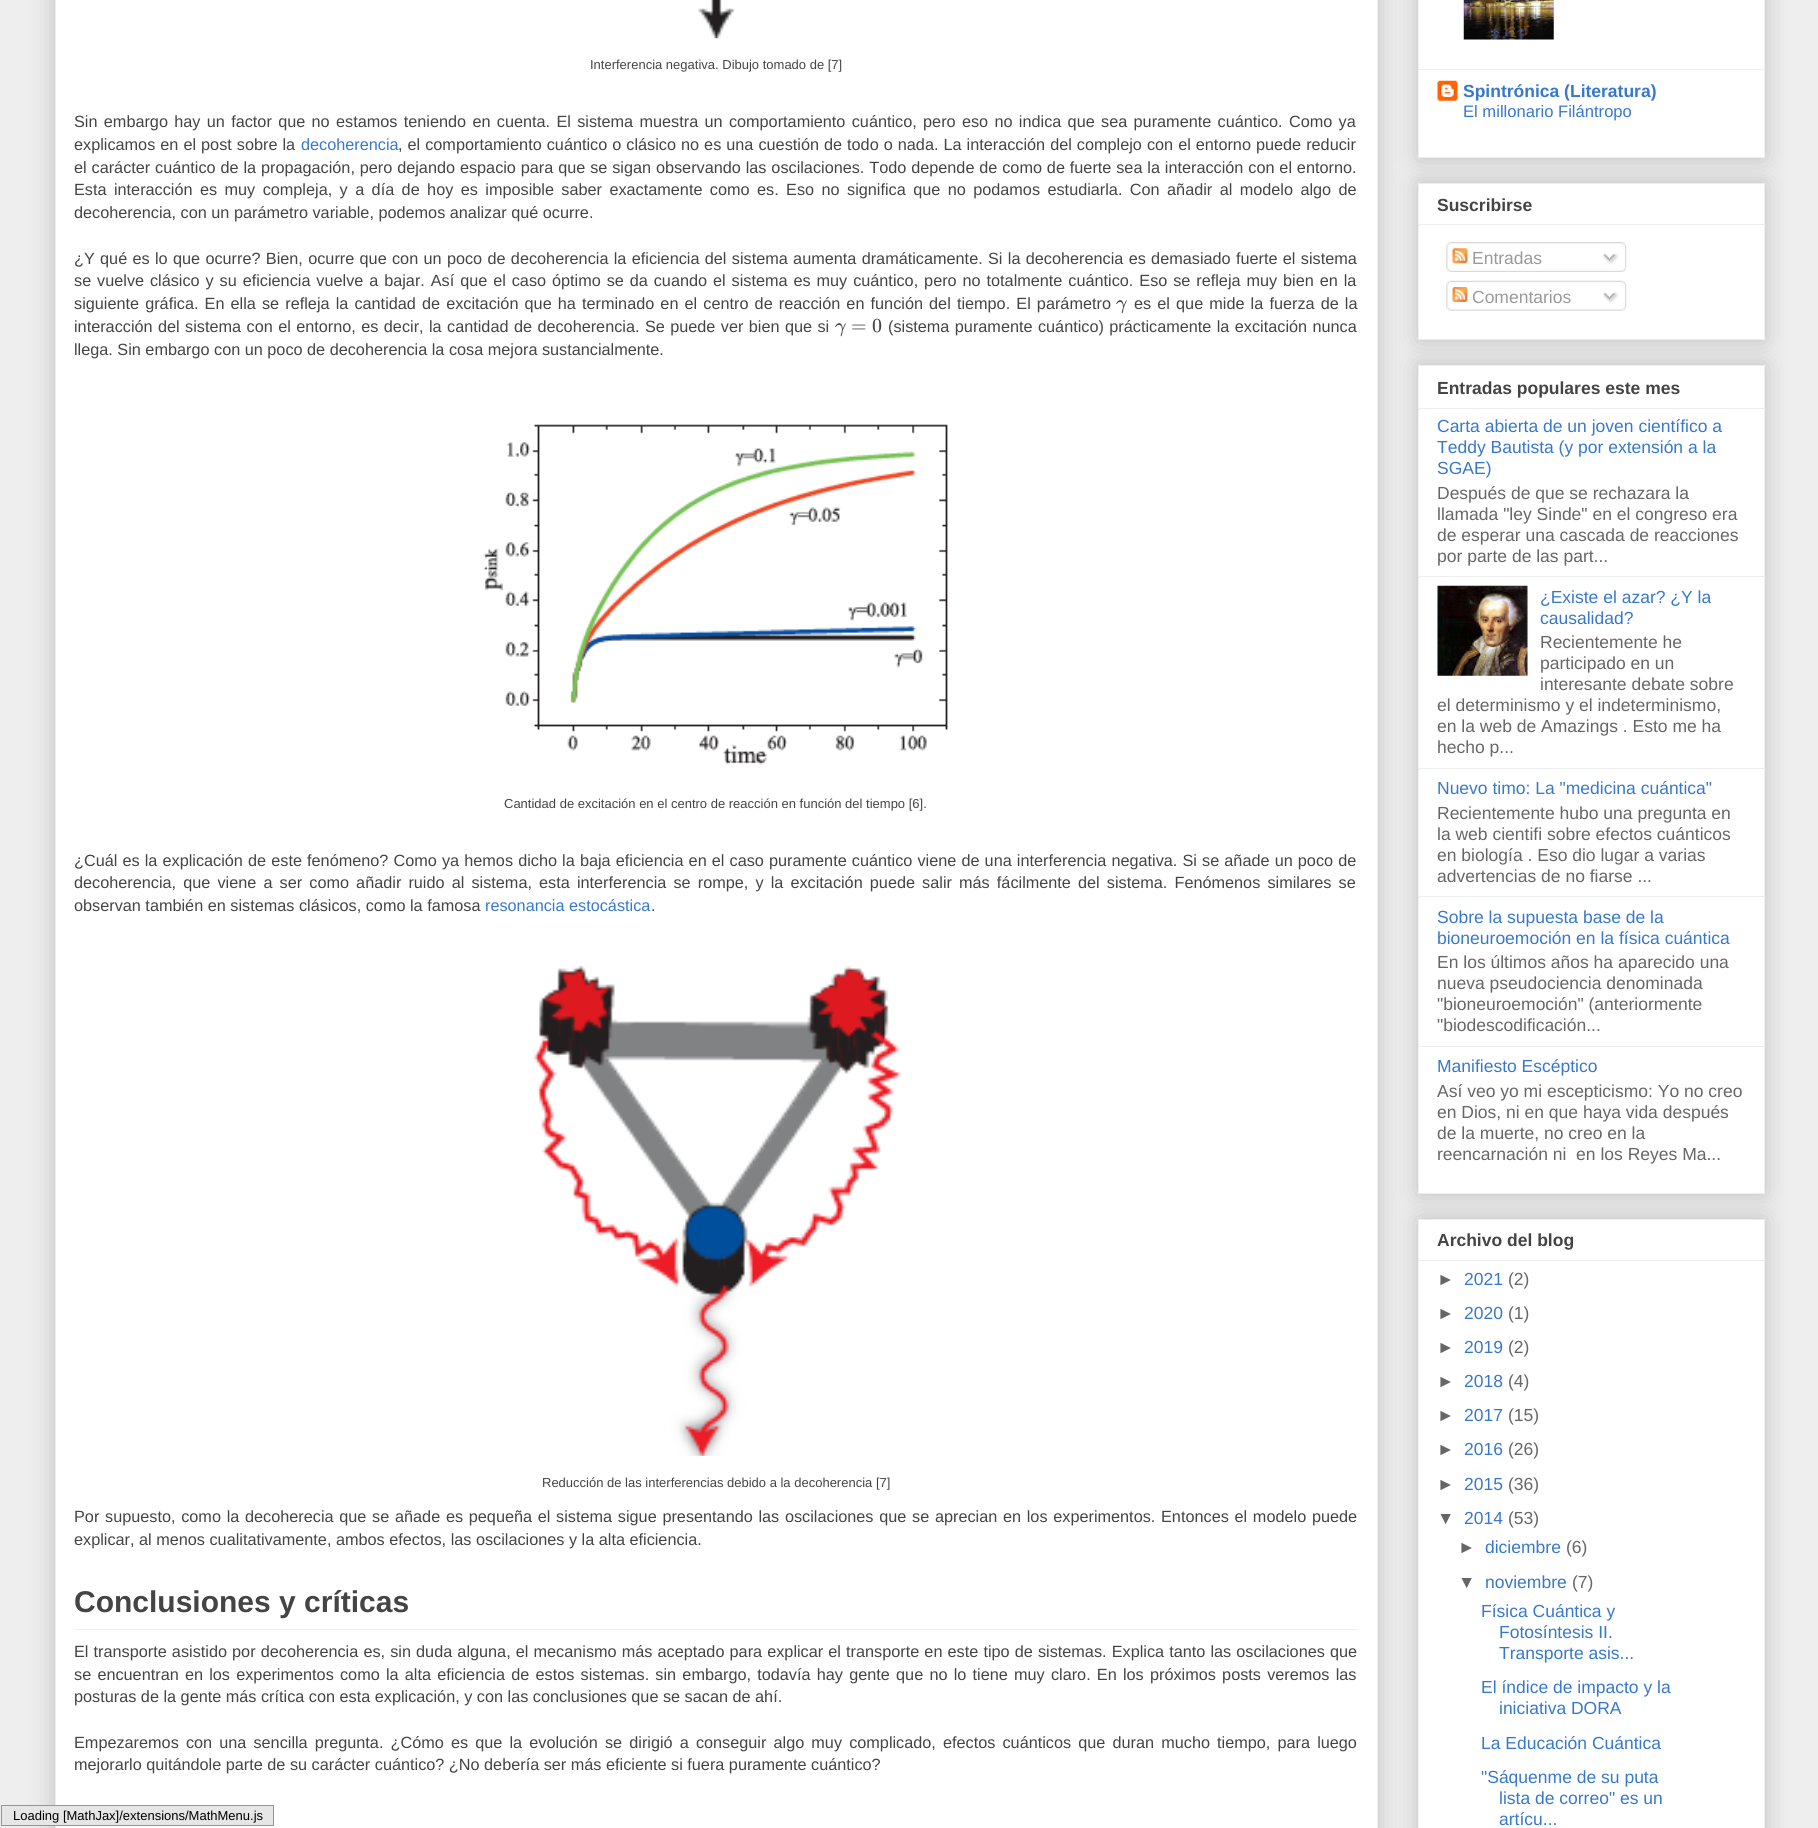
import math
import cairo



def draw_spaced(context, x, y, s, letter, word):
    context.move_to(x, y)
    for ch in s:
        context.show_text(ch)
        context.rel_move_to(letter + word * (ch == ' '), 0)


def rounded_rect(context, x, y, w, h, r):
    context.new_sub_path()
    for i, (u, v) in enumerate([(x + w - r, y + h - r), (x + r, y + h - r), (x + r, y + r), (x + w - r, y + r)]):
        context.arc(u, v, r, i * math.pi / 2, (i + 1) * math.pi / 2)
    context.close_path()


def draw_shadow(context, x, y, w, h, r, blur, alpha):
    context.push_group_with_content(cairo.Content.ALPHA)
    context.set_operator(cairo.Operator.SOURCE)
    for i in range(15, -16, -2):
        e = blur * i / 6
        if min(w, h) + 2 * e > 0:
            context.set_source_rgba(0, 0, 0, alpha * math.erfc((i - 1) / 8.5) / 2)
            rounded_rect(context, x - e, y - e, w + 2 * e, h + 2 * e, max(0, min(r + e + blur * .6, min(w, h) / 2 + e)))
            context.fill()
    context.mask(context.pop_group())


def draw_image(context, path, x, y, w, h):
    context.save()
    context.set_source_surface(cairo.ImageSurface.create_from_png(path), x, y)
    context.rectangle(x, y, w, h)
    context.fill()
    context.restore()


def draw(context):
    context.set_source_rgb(238 / 255, 238 / 255, 238 / 255)
    context.paint()
    context.set_source_rgb(0, 0, 0)
    draw_shadow(context, 55, -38, 1323, 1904, 0, 12.5, 0.2)
    context.set_source_rgb(1, 1, 1)
    context.rectangle(55.5, -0.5, 1322, 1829)
    context.fill_preserve()
    context.set_source_rgb(238 / 255, 238 / 255, 238 / 255)
    context.set_line_width(1)
    context.stroke()
    draw_image(context, "images/1.png", 698, 0, 37, 39)
    draw_image(context, "images/2.png", 483, 424, 465, 341)
    draw_image(context, "images/3.png", 533, 965, 369, 491)
    context.rectangle(75, 1629, 1283, 1)
    context.fill()
    context.set_source_rgb(0, 0, 0)
    draw_shadow(context, 1418, 183, 347, 157, 0, 12.5, 0.2)
    context.set_source_rgb(1, 1, 1)
    context.rectangle(1418.5, 183.5, 346, 156)
    context.fill_preserve()
    context.set_source_rgb(238 / 255, 238 / 255, 238 / 255)
    context.stroke()
    context.set_source_rgb(0, 0, 0)
    draw_shadow(context, 1418, -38, 347, 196, 0, 12.5, 0.2)
    context.set_source_rgb(1, 1, 1)
    context.rectangle(1418.5, -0.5, 346, 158)
    context.fill_preserve()
    context.set_source_rgb(238 / 255, 238 / 255, 238 / 255)
    context.stroke()
    draw_image(context, "images/4.png", 1463, 0, 91, 40)
    context.rectangle(1419, 69, 345, 1)
    context.fill()
    draw_image(context, "images/5.png", 1437, 80, 21, 21)
    context.rectangle(1419, 224, 345, 1)
    context.fill()
    draw_image(context, "images/6.png", 1446, 242, 181, 27)
    draw_image(context, "images/7.png", 1452, 248, 16, 16)
    draw_image(context, "images/8.png", 1602, 253, 17, 12)
    draw_image(context, "images/9.png", 1446, 268, 180, 4)
    draw_image(context, "images/10.png", 1446, 280, 181, 27)
    draw_image(context, "images/11.png", 1452, 287, 16, 15)
    draw_image(context, "images/12.png", 1602, 292, 17, 11)
    draw_image(context, "images/13.png", 1446, 307, 180, 4)
    context.set_source_rgb(0, 0, 0)
    draw_shadow(context, 1418, 365, 347, 829, 0, 12.5, 0.2)
    context.set_source_rgb(1, 1, 1)
    context.rectangle(1418.5, 365.5, 346, 828)
    context.fill_preserve()
    context.set_source_rgb(238 / 255, 238 / 255, 238 / 255)
    context.stroke()
    context.rectangle(1419, 408, 345, 1)
    context.fill()
    context.rectangle(1419, 576, 345, 1)
    context.fill()
    draw_image(context, "images/14.png", 1437, 585, 91, 91)
    context.rectangle(1419, 768, 345, 1)
    context.fill()
    context.rectangle(1419, 896, 345, 1)
    context.fill()
    context.rectangle(1419, 1046, 345, 1)
    context.fill()
    context.set_source_rgb(0, 0, 0)
    draw_shadow(context, 1418, 1219, 347, 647, 0, 12.5, 0.2)
    context.set_source_rgb(1, 1, 1)
    context.rectangle(1418.5, 1219.5, 346, 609)
    context.fill_preserve()
    context.set_source_rgb(238 / 255, 238 / 255, 238 / 255)
    context.stroke()
    context.rectangle(1419, 1260, 345, 1)
    context.fill()
    context.set_source_rgb(230 / 255, 230 / 255, 230 / 255)
    context.rectangle(1.5, 1805.5, 272, 20)
    context.fill_preserve()
    context.set_source_rgb(149 / 255, 149 / 255, 149 / 255)
    context.stroke()
    context.select_font_face("Liberation Sans")
    context.set_font_size(13)
    context.set_source_rgb(68 / 255, 68 / 255, 68 / 255)
    context.move_to(590, 69)
    context.show_text("Interferencia negativa. Dibujo tomado de [7]")
    context.set_font_size(16.25)
    draw_spaced(context, 74, 127, "Sin embargo hay un factor que no estamos teniendo en cuenta. El sistema muestra un comportamiento cuántico, pero eso no indica que sea puramente cuántico. Como ya", 0, 1.8)
    draw_spaced(context, 74, 150, "explicamos en el post sobre la", 0, 0.5)
    context.set_source_rgb(55 / 255, 120 / 255, 205 / 255)
    context.move_to(301, 150)
    context.show_text("decoherencia")
    context.set_source_rgb(68 / 255, 68 / 255, 68 / 255)
    draw_spaced(context, 398, 150, ", el comportamiento cuántico o clásico no es una cuestión de todo o nada. La interacción del complejo con el entorno puede reducir", 0, 0.5)
    draw_spaced(context, 74, 173, "el carácter cuántico de la propagación, pero dejando espacio para que se sigan observando las oscilaciones. Todo depende de como de fuerte sea la interacción con el entorno.", 0, 0.35)
    draw_spaced(context, 74, 195, "Esta interacción es muy compleja, y a día de hoy es imposible saber exactamente como es. Eso no significa que no podamos estudiarla. Con añadir al modelo algo de", 0, 2.9)
    context.move_to(74, 218)
    context.show_text("decoherencia, con un parámetro variable, podemos analizar qué ocurre.")
    draw_spaced(context, 74, 264, "¿Y qué es lo que ocurre? Bien, ocurre que con un poco de decoherencia la eficiencia del sistema aumenta dramáticamente. Si la decoherencia es demasiado fuerte el sistema", 0, 0.8)
    draw_spaced(context, 74, 286, "se vuelve clásico y su eficiencia vuelve a bajar. Así que el caso óptimo se da cuando el sistema es muy cuántico, pero no totalmente cuántico. Eso se refleja muy bien en la", 0, 1.4)
    draw_spaced(context, 74, 309, "siguiente gráfica. En ella se refleja la cantidad de excitación que ha terminado en el centro de reacción en función del tiempo. El parámetro", 0, 1.6)
    context.select_font_face("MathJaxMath", cairo.FontSlant.ITALIC)
    context.set_font_size(20)
    context.move_to(1116, 309)
    context.show_text("γ")
    context.select_font_face("Liberation Sans")
    context.set_font_size(16.25)
    draw_spaced(context, 1134, 309, "es el que mide la fuerza de la", 0, 1.6)
    draw_spaced(context, 74, 332, "interacción del sistema con el entorno, es decir, la cantidad de decoherencia. Se puede ver bien que si", 0, 0.9)
    context.select_font_face("MathJaxMath", cairo.FontSlant.ITALIC)
    context.set_font_size(20)
    context.move_to(835, 332)
    context.show_text("γ")
    context.select_font_face("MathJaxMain")
    context.move_to(851, 332)
    context.show_text("=")
    context.move_to(872, 332)
    context.show_text("0")
    context.select_font_face("Liberation Sans")
    context.set_font_size(16.25)
    draw_spaced(context, 888, 332, "(sistema puramente cuántico) prácticamente la excitación nunca", 0, 0.9)
    context.move_to(74, 355)
    context.show_text("llega. Sin embargo con un poco de decoherencia la cosa mejora sustancialmente.")
    context.set_font_size(13)
    context.move_to(504, 808)
    context.show_text("Cantidad de excitación en el centro de reacción en función del tiempo [6].")
    context.set_font_size(16.25)
    draw_spaced(context, 74, 866, "¿Cuál es la explicación de este fenómeno? Como ya hemos dicho la baja eficiencia en el caso puramente cuántico viene de una interferencia negativa. Si se añade un poco de", 0, 0.6)
    draw_spaced(context, 74, 888, "decoherencia, que viene a ser como añadir ruido al sistema, esta interferencia se rompe, y la excitación puede salir más fácilmente del sistema. Fenómenos similares se", 0, 2.6)
    context.move_to(74, 911)
    context.show_text("observan también en sistemas clásicos, como la famosa")
    context.set_source_rgb(55 / 255, 120 / 255, 205 / 255)
    context.move_to(485, 911)
    context.show_text("resonancia estocástica")
    context.set_source_rgb(68 / 255, 68 / 255, 68 / 255)
    context.move_to(651, 911)
    context.show_text(".")
    context.set_font_size(13)
    context.move_to(542, 1487)
    context.show_text("Reducción de las interferencias debido a la decoherencia [7]")
    context.set_font_size(16.25)
    draw_spaced(context, 74, 1522, "Por supuesto, como la decoherecia que se añade es pequeña el sistema sigue presentando las oscilaciones que se aprecian en los experimentos. Entonces el modelo puede", 0, 1.2)
    context.move_to(74, 1545)
    context.show_text("explicar, al menos cualitativamente, ambos efectos, las oscilaciones y la alta eficiencia.")
    context.select_font_face("Liberation Sans", cairo.FontSlant.NORMAL, cairo.FontWeight.BOLD)
    context.set_font_size(30)
    context.move_to(74, 1612)
    context.show_text("Conclusiones y críticas")
    context.select_font_face("Liberation Sans")
    context.set_font_size(16.25)
    draw_spaced(context, 74, 1657, "El transporte asistido por decoherencia es, sin duda alguna, el mecanismo más aceptado para explicar el transporte en este tipo de sistemas. Explica tanto las oscilaciones que", 0, 0.6)
    draw_spaced(context, 74, 1680, "se encuentran en los experimentos como la alta eficiencia de estos sistemas. sin embargo, todavía hay gente que no lo tiene muy claro. En los próximos posts veremos las", 0, 1.7)
    context.move_to(74, 1702)
    context.show_text("posturas de la gente más crítica con esta explicación, y con las conclusiones que se sacan de ahí.")
    draw_spaced(context, 74, 1748, "Empezaremos con una sencilla pregunta. ¿Cómo es que la evolución se dirigió a conseguir algo muy complicado, efectos cuánticos que duran mucho tiempo, para luego", 0, 2.6)
    context.move_to(74, 1770)
    context.show_text("mejorarlo quitándole parte de su carácter cuántico? ¿No debería ser más eficiente si fuera puramente cuántico?")
    context.select_font_face("Liberation Sans", cairo.FontSlant.NORMAL, cairo.FontWeight.BOLD)
    context.set_font_size(17.5)
    context.set_source_rgb(55 / 255, 120 / 255, 205 / 255)
    context.move_to(1463, 97)
    context.show_text("Spintrónica (Literatura)")
    context.select_font_face("Liberation Sans")
    context.set_font_size(16.6)
    context.move_to(1463, 117)
    context.show_text("El millonario Filántropo")
    context.select_font_face("Liberation Sans", cairo.FontSlant.NORMAL, cairo.FontWeight.BOLD)
    context.set_font_size(17.5)
    context.set_source_rgb(68 / 255, 68 / 255, 68 / 255)
    context.move_to(1437, 211)
    context.show_text("Suscribirse")
    context.select_font_face("Liberation Sans")
    context.set_source_rgb(153 / 255, 153 / 255, 153 / 255)
    context.move_to(1472, 264)
    context.show_text("Entradas")
    context.move_to(1472, 303)
    context.show_text("Comentarios")
    context.select_font_face("Liberation Sans", cairo.FontSlant.NORMAL, cairo.FontWeight.BOLD)
    context.set_source_rgb(68 / 255, 68 / 255, 68 / 255)
    context.move_to(1437, 394)
    context.show_text("Entradas populares este mes")
    context.select_font_face("Liberation Sans")
    context.set_source_rgb(55 / 255, 120 / 255, 205 / 255)
    context.move_to(1437, 432)
    context.show_text("Carta abierta de un joven científico a")
    context.move_to(1437, 453)
    context.show_text("Teddy Bautista (y por extensión a la")
    context.move_to(1437, 474)
    context.show_text("SGAE)")
    context.set_source_rgb(102 / 255, 102 / 255, 102 / 255)
    context.move_to(1437, 499)
    context.show_text("Después de que se rechazara la")
    context.move_to(1437, 520)
    context.show_text("llamada \"ley Sinde\" en el congreso era")
    context.move_to(1437, 541)
    context.show_text("de esperar una cascada de reacciones")
    context.move_to(1437, 562)
    context.show_text("por parte de las part...")
    context.set_source_rgb(55 / 255, 120 / 255, 205 / 255)
    context.move_to(1540, 603)
    context.show_text("¿Existe el azar? ¿Y la")
    context.move_to(1540, 624)
    context.show_text("causalidad?")
    context.set_source_rgb(102 / 255, 102 / 255, 102 / 255)
    context.move_to(1540, 648)
    context.show_text("Recientemente he")
    context.move_to(1540, 669)
    context.show_text("participado en un")
    context.move_to(1540, 690)
    context.show_text("interesante debate sobre")
    context.move_to(1437, 711)
    context.show_text("el determinismo y el indeterminismo,")
    context.move_to(1437, 732)
    context.show_text("en la web de Amazings . Esto me ha")
    context.move_to(1437, 753)
    context.show_text("hecho p...")
    context.set_source_rgb(55 / 255, 120 / 255, 205 / 255)
    context.move_to(1437, 794)
    context.show_text("Nuevo timo: La \"medicina cuántica\"")
    context.set_source_rgb(102 / 255, 102 / 255, 102 / 255)
    context.move_to(1437, 819)
    context.show_text("Recientemente hubo una pregunta en")
    context.move_to(1437, 840)
    context.show_text("la web cientifi sobre efectos cuánticos")
    context.move_to(1437, 861)
    context.show_text("en biología . Eso dio lugar a varias")
    context.move_to(1437, 882)
    context.show_text("advertencias de no fiarse ...")
    context.set_source_rgb(55 / 255, 120 / 255, 205 / 255)
    context.move_to(1437, 923)
    context.show_text("Sobre la supuesta base de la")
    context.move_to(1437, 944)
    context.show_text("bioneuroemoción en la física cuántica")
    context.set_source_rgb(102 / 255, 102 / 255, 102 / 255)
    context.move_to(1437, 968)
    context.show_text("En los últimos años ha aparecido una")
    context.move_to(1437, 989)
    context.show_text("nueva pseudociencia denominada")
    context.move_to(1437, 1010)
    context.show_text("\"bioneuroemoción\" (anteriormente")
    context.move_to(1437, 1031)
    context.show_text("\"biodescodificación...")
    context.set_source_rgb(55 / 255, 120 / 255, 205 / 255)
    context.move_to(1437, 1072)
    context.show_text("Manifiesto Escéptico")
    context.set_source_rgb(102 / 255, 102 / 255, 102 / 255)
    context.move_to(1437, 1097)
    context.show_text("Así veo yo mi escepticismo: Yo no creo")
    context.move_to(1437, 1118)
    context.show_text("en Dios, ni en que haya vida después")
    context.move_to(1437, 1139)
    context.show_text("de la muerte, no creo en la")
    context.move_to(1437, 1160)
    context.show_text("reencarnación ni  en los Reyes Ma...")
    context.select_font_face("Liberation Sans", cairo.FontSlant.NORMAL, cairo.FontWeight.BOLD)
    context.set_source_rgb(68 / 255, 68 / 255, 68 / 255)
    context.move_to(1437, 1246)
    context.show_text("Archivo del blog")
    context.select_font_face("Liberation Sans")
    context.set_source_rgb(102 / 255, 102 / 255, 102 / 255)
    context.move_to(1437, 1285)
    context.show_text("►")
    context.set_source_rgb(55 / 255, 120 / 255, 205 / 255)
    context.move_to(1464, 1285)
    context.show_text("2021")
    context.set_source_rgb(102 / 255, 102 / 255, 102 / 255)
    context.move_to(1508, 1285)
    context.show_text("(2)")
    context.move_to(1437, 1319)
    context.show_text("►")
    context.set_source_rgb(55 / 255, 120 / 255, 205 / 255)
    context.move_to(1464, 1319)
    context.show_text("2020")
    context.set_source_rgb(102 / 255, 102 / 255, 102 / 255)
    context.move_to(1508, 1319)
    context.show_text("(1)")
    context.move_to(1437, 1353)
    context.show_text("►")
    context.set_source_rgb(55 / 255, 120 / 255, 205 / 255)
    context.move_to(1464, 1353)
    context.show_text("2019")
    context.set_source_rgb(102 / 255, 102 / 255, 102 / 255)
    context.move_to(1508, 1353)
    context.show_text("(2)")
    context.move_to(1437, 1387)
    context.show_text("►")
    context.set_source_rgb(55 / 255, 120 / 255, 205 / 255)
    context.move_to(1464, 1387)
    context.show_text("2018")
    context.set_source_rgb(102 / 255, 102 / 255, 102 / 255)
    context.move_to(1508, 1387)
    context.show_text("(4)")
    context.move_to(1437, 1421)
    context.show_text("►")
    context.set_source_rgb(55 / 255, 120 / 255, 205 / 255)
    context.move_to(1464, 1421)
    context.show_text("2017")
    context.set_source_rgb(102 / 255, 102 / 255, 102 / 255)
    context.move_to(1508, 1421)
    context.show_text("(15)")
    context.move_to(1437, 1455)
    context.show_text("►")
    context.set_source_rgb(55 / 255, 120 / 255, 205 / 255)
    context.move_to(1464, 1455)
    context.show_text("2016")
    context.set_source_rgb(102 / 255, 102 / 255, 102 / 255)
    context.move_to(1508, 1455)
    context.show_text("(26)")
    context.move_to(1437, 1490)
    context.show_text("►")
    context.set_source_rgb(55 / 255, 120 / 255, 205 / 255)
    context.move_to(1464, 1490)
    context.show_text("2015")
    context.set_source_rgb(102 / 255, 102 / 255, 102 / 255)
    context.move_to(1508, 1490)
    context.show_text("(36)")
    context.move_to(1437, 1524)
    context.show_text("▼")
    context.set_source_rgb(55 / 255, 120 / 255, 205 / 255)
    context.move_to(1464, 1524)
    context.show_text("2014")
    context.set_source_rgb(102 / 255, 102 / 255, 102 / 255)
    context.move_to(1508, 1524)
    context.show_text("(53)")
    context.move_to(1458, 1553)
    context.show_text("►")
    context.set_source_rgb(55 / 255, 120 / 255, 205 / 255)
    context.move_to(1485, 1553)
    context.show_text("diciembre")
    context.set_source_rgb(102 / 255, 102 / 255, 102 / 255)
    context.move_to(1566, 1553)
    context.show_text("(6)")
    context.move_to(1458, 1588)
    context.show_text("▼")
    context.set_source_rgb(55 / 255, 120 / 255, 205 / 255)
    context.move_to(1485, 1588)
    context.show_text("noviembre")
    context.set_source_rgb(102 / 255, 102 / 255, 102 / 255)
    context.move_to(1572, 1588)
    context.show_text("(7)")
    context.set_source_rgb(55 / 255, 120 / 255, 205 / 255)
    context.move_to(1481, 1617)
    context.show_text("Física Cuántica y")
    context.move_to(1499, 1638)
    context.show_text("Fotosíntesis II.")
    context.move_to(1499, 1659)
    context.show_text("Transporte asis...")
    context.move_to(1481, 1693)
    context.show_text("El índice de impacto y la")
    context.move_to(1499, 1714)
    context.show_text("iniciativa DORA")
    context.move_to(1481, 1749)
    context.show_text("La Educación Cuántica")
    context.move_to(1481, 1783)
    context.show_text("\"Sáquenme de su puta")
    context.move_to(1499, 1804)
    context.show_text("lista de correo\" es un")
    context.move_to(1499, 1825)
    context.show_text("artícu...")
    context.set_font_size(13)
    context.set_source_rgb(0, 0, 0)
    context.move_to(13, 1820)
    context.show_text("Loading [MathJax]/extensions/MathMenu.js")


surface = cairo.ImageSurface(cairo.Format.RGB24, 1818, 1828)
context = cairo.Context(surface)
options = cairo.FontOptions()
options.set_hint_metrics(cairo.HintMetrics.OFF)
options.set_hint_style(cairo.HintStyle.NONE)
context.set_font_options(options)
context.set_miter_limit(4)
draw(context)
surface.write_to_png("out.png")
